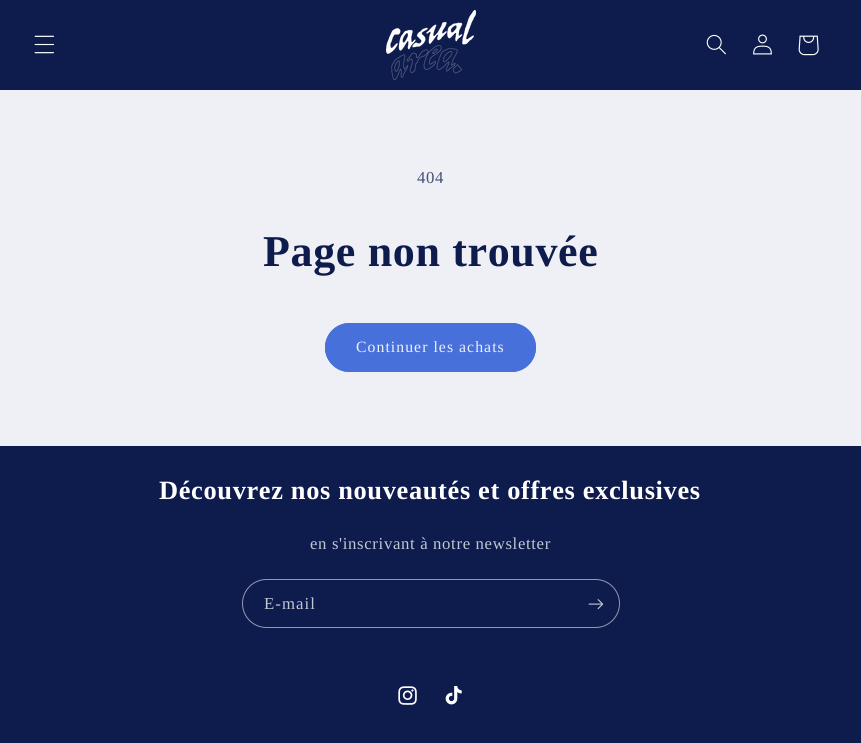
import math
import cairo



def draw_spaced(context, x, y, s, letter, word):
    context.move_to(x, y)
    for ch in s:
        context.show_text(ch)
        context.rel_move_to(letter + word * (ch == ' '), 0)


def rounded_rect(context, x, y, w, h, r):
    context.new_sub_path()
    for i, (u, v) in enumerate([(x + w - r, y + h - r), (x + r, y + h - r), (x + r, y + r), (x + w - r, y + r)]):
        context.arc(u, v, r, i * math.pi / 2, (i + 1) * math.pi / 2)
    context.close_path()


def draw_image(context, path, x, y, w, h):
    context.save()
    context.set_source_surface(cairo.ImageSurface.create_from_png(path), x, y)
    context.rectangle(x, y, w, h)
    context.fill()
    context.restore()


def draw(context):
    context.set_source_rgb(239 / 255, 240 / 255, 245 / 255)
    context.paint()
    context.set_source_rgb(14 / 255, 27 / 255, 77 / 255)
    context.rectangle(0, 0, 861, 90)
    context.fill()
    draw_image(context, "images/1.png", 34, 35, 20, 19)
    draw_image(context, "images/2.png", 386, 10, 90, 70)
    draw_image(context, "images/3.png", 706, 34, 20, 21)
    draw_image(context, "images/4.png", 753, 34, 19, 21)
    draw_image(context, "images/5.png", 798, 35, 21, 21)
    context.set_source_rgb(71 / 255, 112 / 255, 219 / 255)
    rounded_rect(context, 325, 323, 211, 49, 24.5)
    context.fill()
    rounded_rect(context, 325.5, 323.5, 210, 48, 24)
    context.set_line_width(1)
    context.stroke()
    context.set_source_rgb(14 / 255, 27 / 255, 77 / 255)
    context.rectangle(0, 446, 861, 297)
    context.fill()
    draw_image(context, "images/6.png", 398, 686, 19, 19)
    draw_image(context, "images/7.png", 445, 686, 17, 19)
    rounded_rect(context, 242.5, 579.5, 377, 48, 24)
    context.set_source_rgb(147 / 255, 152 / 255, 175 / 255)
    context.stroke()
    draw_image(context, "images/8.png", 588, 599, 15, 11)
    context.select_font_face("Liberation Serif")
    context.set_font_size(16.75)
    context.set_source_rgb(70 / 255, 80 / 255, 119 / 255)
    draw_spaced(context, 417, 183, "404", 0.65, 0)
    context.select_font_face("Liberation Serif", cairo.FontSlant.NORMAL, cairo.FontWeight.BOLD)
    context.set_font_size(44)
    context.set_source_rgb(14 / 255, 27 / 255, 77 / 255)
    draw_spaced(context, 263, 266, "Page non trouvée", 0.65, 0)
    context.select_font_face("Liberation Serif")
    context.set_font_size(15.75)
    context.set_source_rgb(239 / 255, 240 / 255, 245 / 255)
    draw_spaced(context, 356, 352, "Continuer les achats", 1.05, 0)
    context.select_font_face("Liberation Serif", cairo.FontSlant.NORMAL, cairo.FontWeight.BOLD)
    context.set_font_size(26.4)
    context.set_source_rgb(1, 1, 1)
    draw_spaced(context, 159, 499, "Découvrez nos nouveautés et offres exclusives", 0.65, 0)
    context.select_font_face("Liberation Serif")
    context.set_font_size(16.75)
    context.set_source_rgb(195 / 255, 198 / 255, 211 / 255)
    draw_spaced(context, 310, 549, "en s'inscrivant à notre newsletter", 0.65, 0)
    draw_spaced(context, 264, 609, "E-mail", 1.05, 0)


surface = cairo.ImageSurface(cairo.Format.RGB24, 861, 743)
context = cairo.Context(surface)
options = cairo.FontOptions()
options.set_hint_metrics(cairo.HintMetrics.OFF)
options.set_hint_style(cairo.HintStyle.NONE)
context.set_font_options(options)
context.set_miter_limit(4)
draw(context)
surface.write_to_png("out.png")
